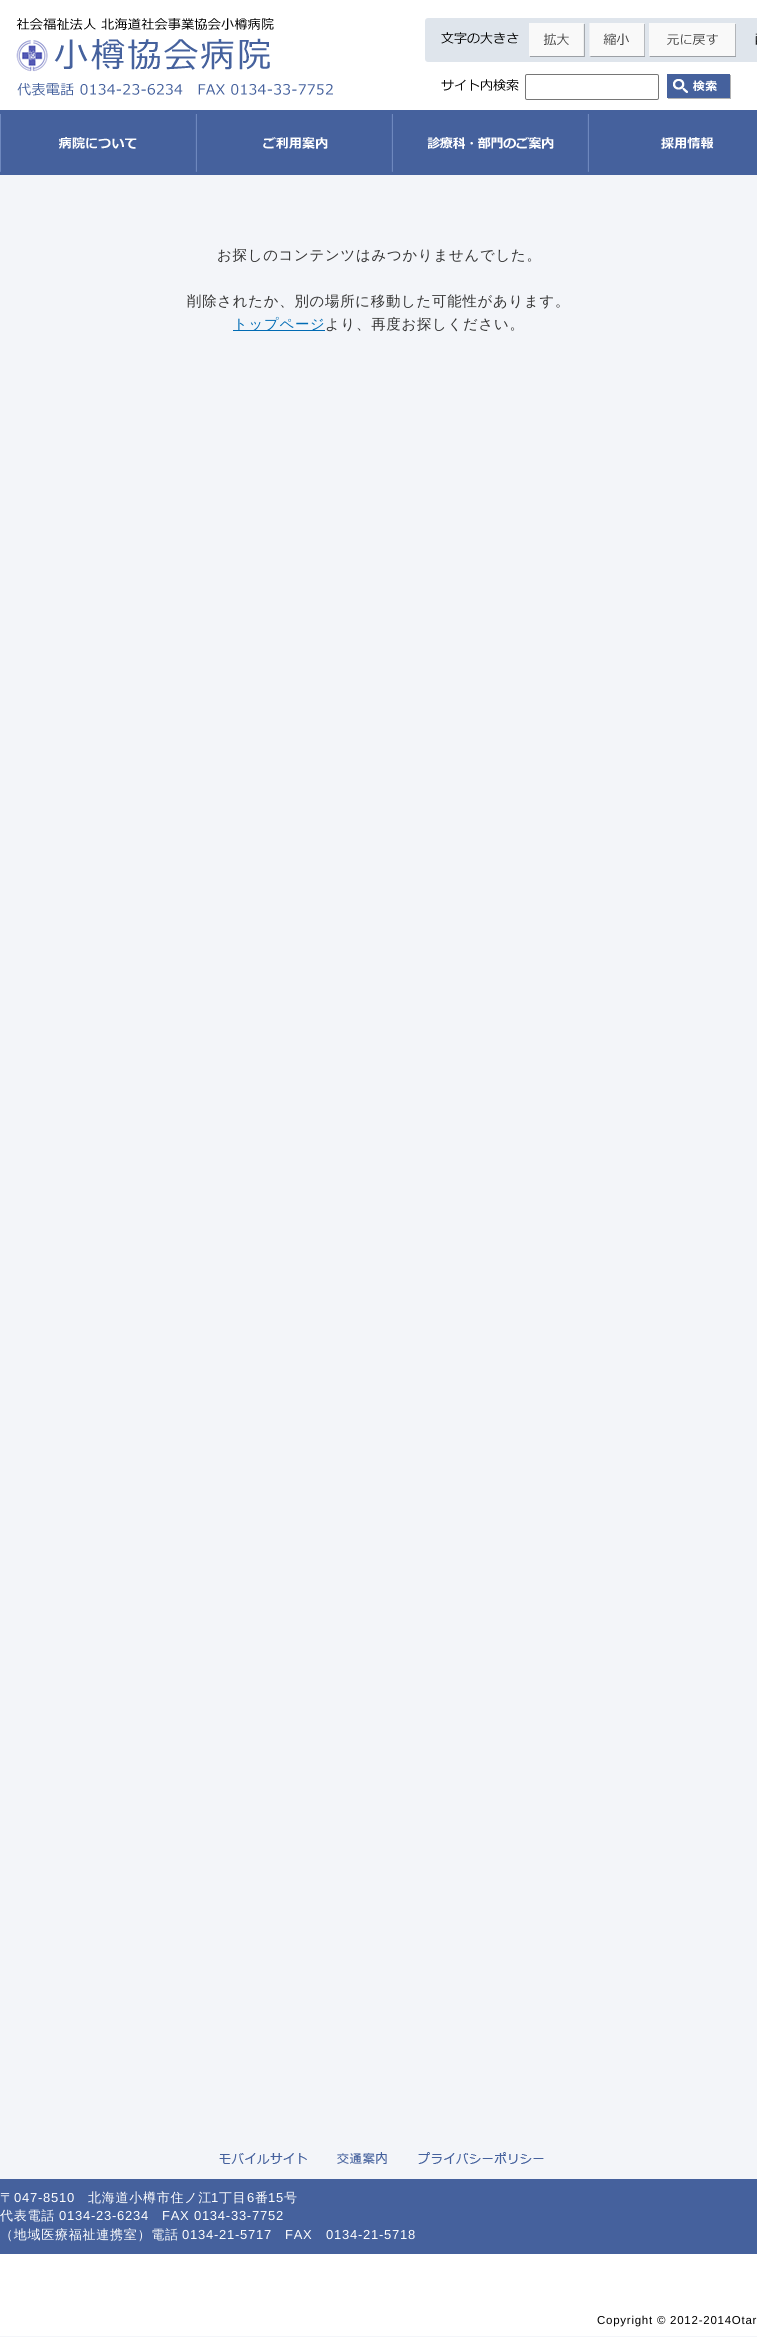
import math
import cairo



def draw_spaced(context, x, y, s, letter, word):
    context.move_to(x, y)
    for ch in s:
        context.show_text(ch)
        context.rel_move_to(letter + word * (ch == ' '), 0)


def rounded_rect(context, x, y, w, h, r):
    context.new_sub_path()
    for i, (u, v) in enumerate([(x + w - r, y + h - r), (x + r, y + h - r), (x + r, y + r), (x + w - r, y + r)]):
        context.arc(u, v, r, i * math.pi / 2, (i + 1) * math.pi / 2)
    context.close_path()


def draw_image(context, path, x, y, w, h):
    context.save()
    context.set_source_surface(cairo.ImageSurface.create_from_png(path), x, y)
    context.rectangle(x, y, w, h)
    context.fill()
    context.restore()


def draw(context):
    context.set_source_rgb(243 / 255, 245 / 255, 249 / 255)
    context.paint()
    context.set_source_rgb(1, 1, 1)
    context.rectangle(0, 0, 757, 110)
    context.fill()
    draw_image(context, "images/1.png", 16, 18, 317, 78)
    context.set_source_rgb(223 / 255, 229 / 255, 236 / 255)
    rounded_rect(context, 425, 18, 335, 44, 3)
    context.fill()
    draw_image(context, "images/2.png", 441, 32, 78, 12)
    draw_image(context, "images/3.png", 529, 23, 56, 34)
    draw_image(context, "images/4.png", 589, 23, 56, 34)
    draw_image(context, "images/5.png", 649, 23, 87, 34)
    draw_image(context, "images/6.png", 755, 33, 2, 12)
    draw_image(context, "images/7.png", 441, 79, 78, 12)
    rounded_rect(context, 525.5, 74.5, 133, 25, 1.5)
    context.set_source_rgb(118 / 255, 118 / 255, 118 / 255)
    context.set_line_width(1)
    context.stroke()
    draw_image(context, "images/8.png", 667, 74, 64, 25)
    context.set_source_rgb(69 / 255, 97 / 255, 157 / 255)
    context.rectangle(0, 110, 757, 65)
    context.fill()
    draw_image(context, "images/9.png", 0, 114, 196, 58)
    draw_image(context, "images/10.png", 196, 114, 196, 58)
    draw_image(context, "images/11.png", 392, 114, 196, 58)
    draw_image(context, "images/12.png", 588, 114, 126, 58)
    context.set_source_rgb(0, 107 / 255, 180 / 255)
    context.rectangle(233, 330, 92, 1)
    context.fill()
    context.set_source_rgb(69 / 255, 97 / 255, 157 / 255)
    context.rectangle(0, 2179, 757, 75)
    context.fill()
    draw_image(context, "images/13.png", 219, 2153, 88, 11)
    draw_image(context, "images/14.png", 337, 2152, 50, 12)
    draw_image(context, "images/15.png", 418, 2152, 126, 12)
    context.set_source_rgb(1, 1, 1)
    context.rectangle(0, 2254, 757, 82)
    context.fill()
    context.select_font_face("WenQuanYi Zen Hei Medium")
    context.set_font_size(14.4)
    context.set_source_rgb(51 / 255, 51 / 255, 51 / 255)
    draw_spaced(context, 217, 260, "お探しのコンテンツはみつかりませんでした。", 0.75, 0)
    draw_spaced(context, 187, 306, "削除されたか、別の場所に移動した可能性があります。", 0.75, 0)
    context.set_source_rgb(0, 107 / 255, 180 / 255)
    draw_spaced(context, 233, 329, "トップページ", 0.75, 0)
    context.set_source_rgb(51 / 255, 51 / 255, 51 / 255)
    draw_spaced(context, 325, 329, "より、再度お探しください。", 0.75, 0)
    context.set_font_size(13)
    context.set_source_rgb(1, 1, 1)
    draw_spaced(context, 0, 2202, "〒", 0.75, 0)
    context.select_font_face("Liberation Sans")
    draw_spaced(context, 14, 2202, "047-8510", 0.75, 0)
    context.select_font_face("WenQuanYi Zen Hei Medium")
    draw_spaced(context, 88, 2202, "北海道小樽市住ノ江", 0.75, 0)
    context.select_font_face("Liberation Sans")
    draw_spaced(context, 211, 2202, "1", 0.75, 0)
    context.select_font_face("WenQuanYi Zen Hei Medium")
    draw_spaced(context, 219, 2202, "丁目", 0.75, 0)
    context.select_font_face("Liberation Sans")
    draw_spaced(context, 247, 2202, "6", 0.75, 0)
    context.select_font_face("WenQuanYi Zen Hei Medium")
    draw_spaced(context, 255, 2202, "番", 0.75, 0)
    context.select_font_face("Liberation Sans")
    draw_spaced(context, 268, 2202, "15", 0.75, 0)
    context.select_font_face("WenQuanYi Zen Hei Medium")
    draw_spaced(context, 284, 2202, "号", 0.75, 0)
    draw_spaced(context, 0, 2220, "代表電話", 0.75, 0)
    context.select_font_face("Liberation Sans")
    draw_spaced(context, 59, 2220, "0134-23-6234", 0.75, 0)
    draw_spaced(context, 162, 2220, "FAX 0134-33-7752", 0.75, 0)
    context.select_font_face("WenQuanYi Zen Hei Medium")
    draw_spaced(context, 0, 2239, "（地域医療福祉連携室）電話", 0.75, 0)
    context.select_font_face("Liberation Sans")
    draw_spaced(context, 182, 2239, "0134-21-5717", 0.75, 0)
    draw_spaced(context, 285, 2239, "FAX", 0.75, 0)
    draw_spaced(context, 326, 2239, "0134-21-5718", 0.75, 0)
    context.set_font_size(11.5)
    context.set_source_rgb(0, 0, 0)
    draw_spaced(context, 597, 2324, "Copyright © 2012-2014Otar", 0.75, 0)


surface = cairo.ImageSurface(cairo.Format.RGB24, 757, 2337)
context = cairo.Context(surface)
options = cairo.FontOptions()
options.set_hint_metrics(cairo.HintMetrics.OFF)
options.set_hint_style(cairo.HintStyle.NONE)
context.set_font_options(options)
context.set_miter_limit(4)
draw(context)
surface.write_to_png("out.png")
